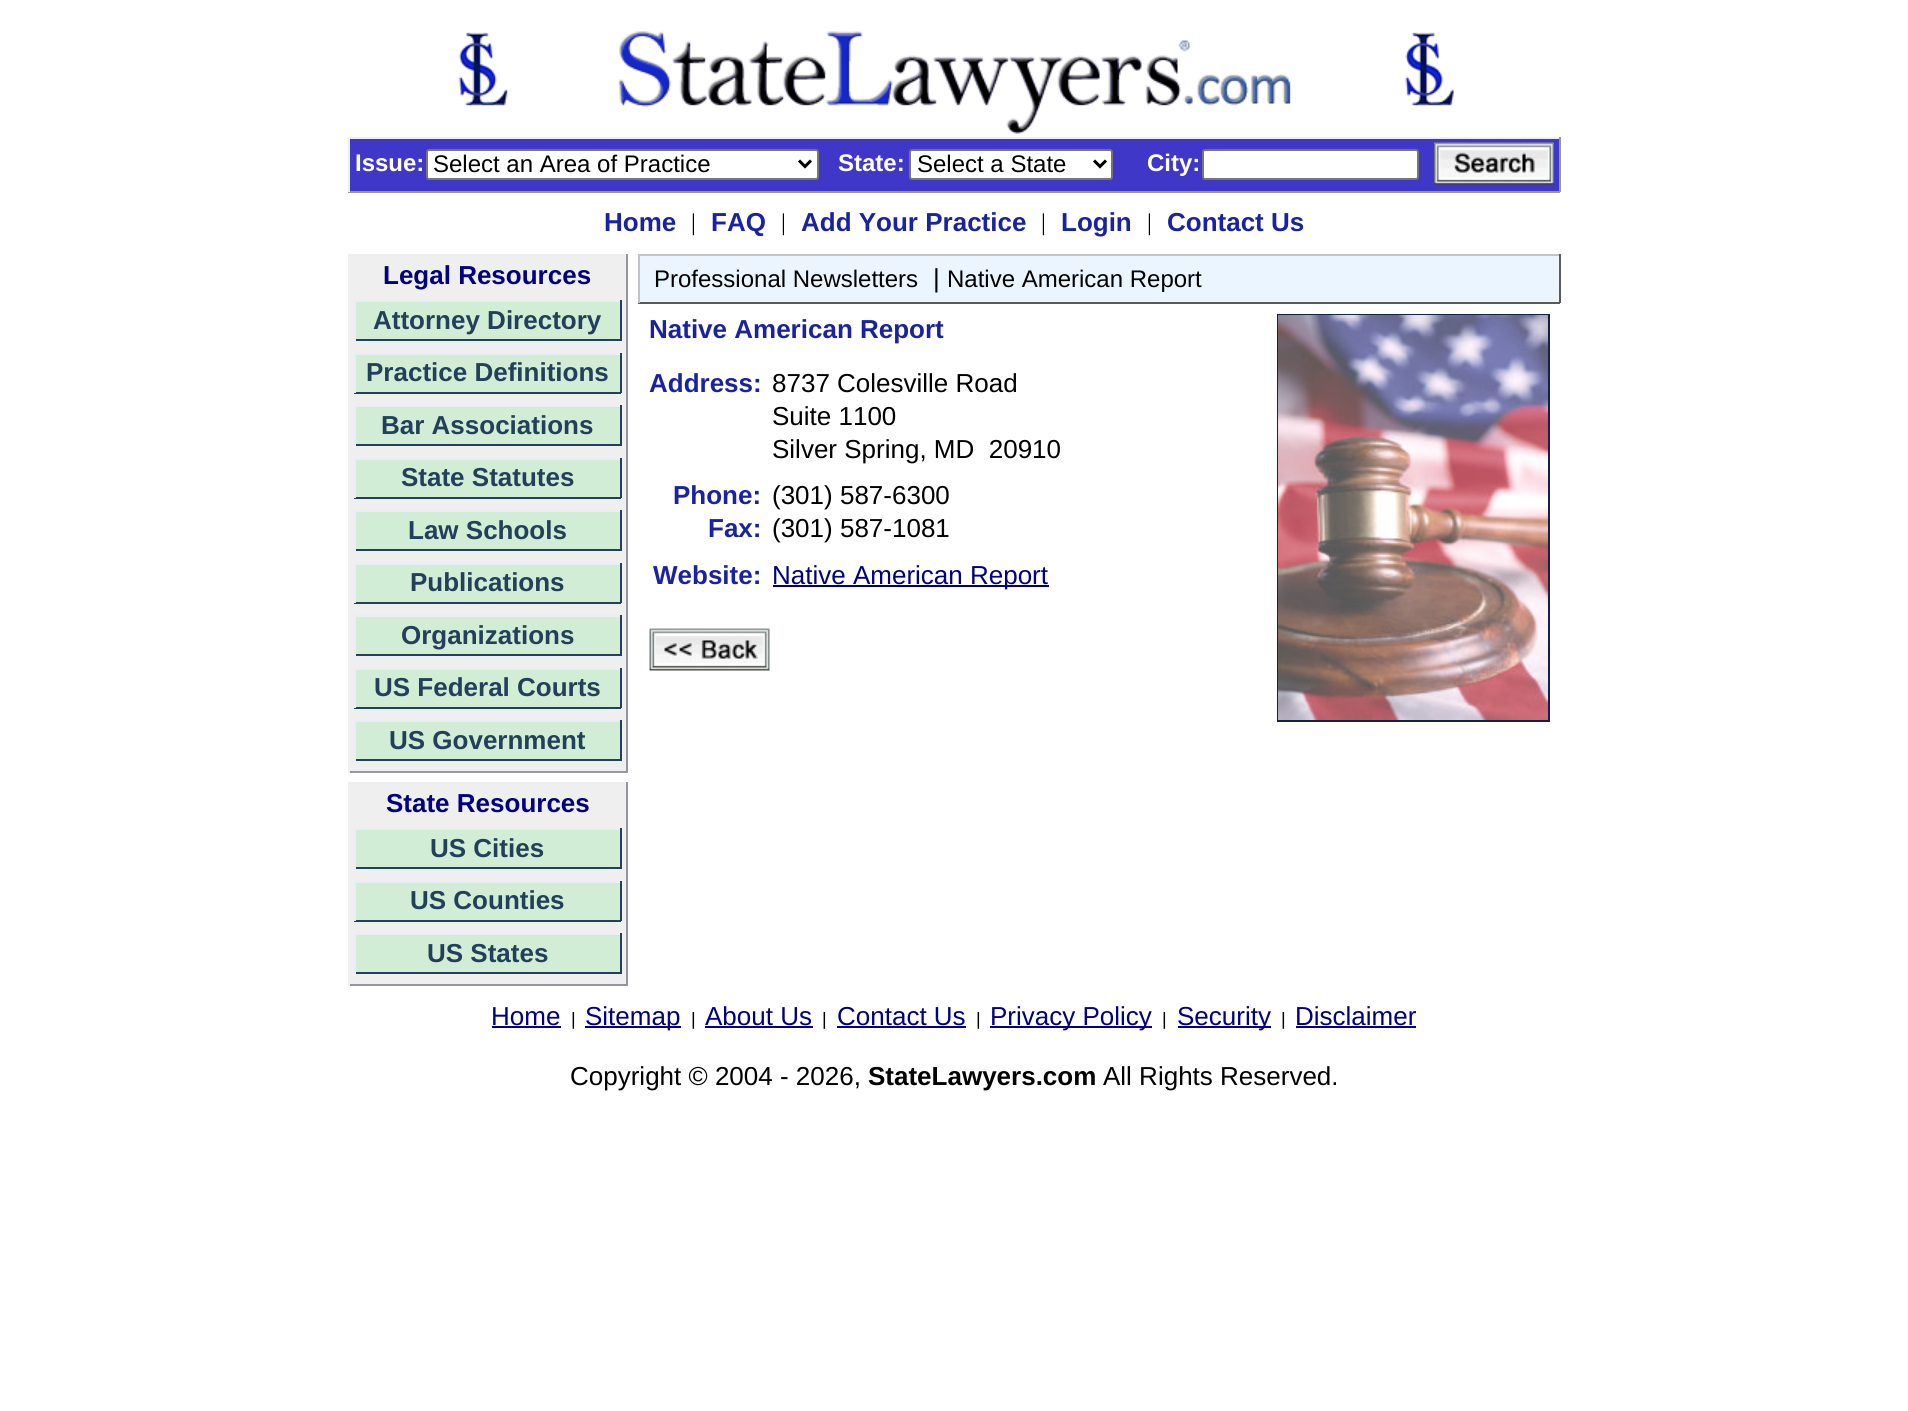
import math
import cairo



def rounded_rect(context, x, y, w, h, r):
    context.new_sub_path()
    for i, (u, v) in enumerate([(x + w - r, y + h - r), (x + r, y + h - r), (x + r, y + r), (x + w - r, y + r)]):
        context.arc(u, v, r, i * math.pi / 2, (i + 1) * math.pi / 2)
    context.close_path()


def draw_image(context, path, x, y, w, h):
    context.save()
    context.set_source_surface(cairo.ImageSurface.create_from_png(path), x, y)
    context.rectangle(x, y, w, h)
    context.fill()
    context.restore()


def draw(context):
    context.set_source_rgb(1, 1, 1)
    context.paint()
    draw_image(context, "images/1.png", 458, 31, 996, 103)
    context.set_source_rgb(62 / 255, 55 / 255, 200 / 255)
    context.rectangle(350, 139, 1209, 52)
    context.fill()
    context.set_source_rgb(239 / 255, 239 / 255, 239 / 255)
    context.rectangle(348, 137, 1212, 2)
    context.fill()
    context.set_source_rgb(150 / 255, 150 / 255, 159 / 255)
    context.rectangle(1559, 137, 2, 55)
    context.fill()
    context.rectangle(348, 191, 1212, 2)
    context.fill()
    context.set_source_rgb(239 / 255, 239 / 255, 239 / 255)
    context.rectangle(348, 137, 2, 55)
    context.fill()
    context.set_source_rgb(1, 1, 1)
    rounded_rect(context, 427, 150, 391, 29, 2)
    context.fill_preserve()
    context.set_source_rgb(118 / 255, 118 / 255, 118 / 255)
    context.stroke()
    context.new_path()
    context.move_to(799, 160.5)
    context.line_to(805, 166.5)
    context.line_to(811, 160.5)
    context.set_source_rgb(0, 0, 0)
    context.set_line_width(3)
    context.stroke()
    context.set_source_rgb(1, 1, 1)
    rounded_rect(context, 910, 150, 202, 29, 2)
    context.fill_preserve()
    context.set_source_rgb(118 / 255, 118 / 255, 118 / 255)
    context.set_line_width(2)
    context.stroke()
    context.new_path()
    context.move_to(1094, 160.5)
    context.line_to(1100, 166.5)
    context.line_to(1106, 160.5)
    context.set_source_rgb(0, 0, 0)
    context.set_line_width(3)
    context.stroke()
    context.set_source_rgb(1, 1, 1)
    rounded_rect(context, 1203, 150, 215, 29, 2)
    context.fill_preserve()
    context.set_source_rgb(118 / 255, 118 / 255, 118 / 255)
    context.set_line_width(2)
    context.stroke()
    draw_image(context, "images/2.png", 1434, 142, 120, 43)
    context.set_source_rgb(239 / 255, 239 / 255, 239 / 255)
    context.rectangle(350, 254, 276, 517)
    context.fill()
    context.set_source_rgb(150 / 255, 150 / 255, 159 / 255)
    context.rectangle(626, 254, 2, 519)
    context.fill()
    context.rectangle(348, 771, 279, 2)
    context.fill()
    context.set_source_rgb(239 / 255, 239 / 255, 239 / 255)
    context.rectangle(348, 254, 2, 519)
    context.fill()
    context.set_source_rgb(209 / 255, 237 / 255, 213 / 255)
    context.rectangle(356, 302, 264, 37)
    context.fill()
    context.set_source_rgb(234 / 255, 237 / 255, 244 / 255)
    context.rectangle(354, 300, 267, 2)
    context.fill()
    context.set_source_rgb(34 / 255, 64 / 255, 89 / 255)
    context.rectangle(620, 300, 2, 41)
    context.fill()
    context.rectangle(354, 339, 267, 2)
    context.fill()
    context.set_source_rgb(234 / 255, 237 / 255, 244 / 255)
    context.rectangle(354, 300, 2, 41)
    context.fill()
    context.set_source_rgb(209 / 255, 237 / 255, 213 / 255)
    context.rectangle(356, 355, 264, 37)
    context.fill()
    context.set_source_rgb(234 / 255, 237 / 255, 244 / 255)
    context.rectangle(354, 353, 267, 2)
    context.fill()
    context.set_source_rgb(34 / 255, 64 / 255, 89 / 255)
    context.rectangle(620, 353, 2, 40)
    context.fill()
    context.rectangle(354, 392, 267, 2)
    context.fill()
    context.set_source_rgb(234 / 255, 237 / 255, 244 / 255)
    context.rectangle(354, 353, 2, 40)
    context.fill()
    context.set_source_rgb(209 / 255, 237 / 255, 213 / 255)
    context.rectangle(356, 407, 264, 37)
    context.fill()
    context.set_source_rgb(234 / 255, 237 / 255, 244 / 255)
    context.rectangle(354, 405, 267, 2)
    context.fill()
    context.set_source_rgb(34 / 255, 64 / 255, 89 / 255)
    context.rectangle(620, 405, 2, 41)
    context.fill()
    context.rectangle(354, 444, 267, 2)
    context.fill()
    context.set_source_rgb(234 / 255, 237 / 255, 244 / 255)
    context.rectangle(354, 405, 2, 41)
    context.fill()
    context.set_source_rgb(209 / 255, 237 / 255, 213 / 255)
    context.rectangle(356, 460, 264, 37)
    context.fill()
    context.set_source_rgb(234 / 255, 237 / 255, 244 / 255)
    context.rectangle(354, 458, 267, 2)
    context.fill()
    context.set_source_rgb(34 / 255, 64 / 255, 89 / 255)
    context.rectangle(620, 458, 2, 40)
    context.fill()
    context.rectangle(354, 497, 267, 2)
    context.fill()
    context.set_source_rgb(234 / 255, 237 / 255, 244 / 255)
    context.rectangle(354, 458, 2, 40)
    context.fill()
    context.set_source_rgb(209 / 255, 237 / 255, 213 / 255)
    context.rectangle(356, 512, 264, 37)
    context.fill()
    context.set_source_rgb(234 / 255, 237 / 255, 244 / 255)
    context.rectangle(354, 510, 267, 2)
    context.fill()
    context.set_source_rgb(34 / 255, 64 / 255, 89 / 255)
    context.rectangle(620, 510, 2, 41)
    context.fill()
    context.rectangle(354, 549, 267, 2)
    context.fill()
    context.set_source_rgb(234 / 255, 237 / 255, 244 / 255)
    context.rectangle(354, 510, 2, 41)
    context.fill()
    context.set_source_rgb(209 / 255, 237 / 255, 213 / 255)
    context.rectangle(356, 565, 264, 37)
    context.fill()
    context.set_source_rgb(234 / 255, 237 / 255, 244 / 255)
    context.rectangle(354, 563, 267, 2)
    context.fill()
    context.set_source_rgb(34 / 255, 64 / 255, 89 / 255)
    context.rectangle(620, 563, 2, 40)
    context.fill()
    context.rectangle(354, 602, 267, 2)
    context.fill()
    context.set_source_rgb(234 / 255, 237 / 255, 244 / 255)
    context.rectangle(354, 563, 2, 40)
    context.fill()
    context.set_source_rgb(209 / 255, 237 / 255, 213 / 255)
    context.rectangle(356, 617, 264, 37)
    context.fill()
    context.set_source_rgb(234 / 255, 237 / 255, 244 / 255)
    context.rectangle(354, 615, 267, 2)
    context.fill()
    context.set_source_rgb(34 / 255, 64 / 255, 89 / 255)
    context.rectangle(620, 615, 2, 41)
    context.fill()
    context.rectangle(354, 654, 267, 2)
    context.fill()
    context.set_source_rgb(234 / 255, 237 / 255, 244 / 255)
    context.rectangle(354, 615, 2, 41)
    context.fill()
    context.set_source_rgb(209 / 255, 237 / 255, 213 / 255)
    context.rectangle(356, 670, 264, 37)
    context.fill()
    context.set_source_rgb(234 / 255, 237 / 255, 244 / 255)
    context.rectangle(354, 668, 267, 2)
    context.fill()
    context.set_source_rgb(34 / 255, 64 / 255, 89 / 255)
    context.rectangle(620, 668, 2, 40)
    context.fill()
    context.rectangle(354, 707, 267, 2)
    context.fill()
    context.set_source_rgb(234 / 255, 237 / 255, 244 / 255)
    context.rectangle(354, 668, 2, 40)
    context.fill()
    context.set_source_rgb(209 / 255, 237 / 255, 213 / 255)
    context.rectangle(356, 722, 264, 37)
    context.fill()
    context.set_source_rgb(234 / 255, 237 / 255, 244 / 255)
    context.rectangle(354, 720, 267, 2)
    context.fill()
    context.set_source_rgb(34 / 255, 64 / 255, 89 / 255)
    context.rectangle(620, 720, 2, 41)
    context.fill()
    context.rectangle(354, 759, 267, 2)
    context.fill()
    context.set_source_rgb(234 / 255, 237 / 255, 244 / 255)
    context.rectangle(354, 720, 2, 41)
    context.fill()
    context.set_source_rgb(239 / 255, 239 / 255, 239 / 255)
    context.rectangle(350, 782, 276, 202)
    context.fill()
    context.set_source_rgb(150 / 255, 150 / 255, 159 / 255)
    context.rectangle(626, 782, 2, 204)
    context.fill()
    context.rectangle(348, 984, 279, 2)
    context.fill()
    context.set_source_rgb(239 / 255, 239 / 255, 239 / 255)
    context.rectangle(348, 782, 2, 204)
    context.fill()
    context.set_source_rgb(209 / 255, 237 / 255, 213 / 255)
    context.rectangle(356, 830, 264, 37)
    context.fill()
    context.set_source_rgb(234 / 255, 237 / 255, 244 / 255)
    context.rectangle(354, 828, 267, 2)
    context.fill()
    context.set_source_rgb(34 / 255, 64 / 255, 89 / 255)
    context.rectangle(620, 828, 2, 41)
    context.fill()
    context.rectangle(354, 867, 267, 2)
    context.fill()
    context.set_source_rgb(234 / 255, 237 / 255, 244 / 255)
    context.rectangle(354, 828, 2, 41)
    context.fill()
    context.set_source_rgb(209 / 255, 237 / 255, 213 / 255)
    context.rectangle(356, 883, 264, 37)
    context.fill()
    context.set_source_rgb(234 / 255, 237 / 255, 244 / 255)
    context.rectangle(354, 881, 267, 2)
    context.fill()
    context.set_source_rgb(34 / 255, 64 / 255, 89 / 255)
    context.rectangle(620, 881, 2, 40)
    context.fill()
    context.rectangle(354, 920, 267, 2)
    context.fill()
    context.set_source_rgb(234 / 255, 237 / 255, 244 / 255)
    context.rectangle(354, 881, 2, 40)
    context.fill()
    context.set_source_rgb(209 / 255, 237 / 255, 213 / 255)
    context.rectangle(356, 935, 264, 37)
    context.fill()
    context.set_source_rgb(234 / 255, 237 / 255, 244 / 255)
    context.rectangle(354, 933, 267, 2)
    context.fill()
    context.set_source_rgb(34 / 255, 64 / 255, 89 / 255)
    context.rectangle(620, 933, 2, 41)
    context.fill()
    context.rectangle(354, 972, 267, 2)
    context.fill()
    context.set_source_rgb(234 / 255, 237 / 255, 244 / 255)
    context.rectangle(354, 933, 2, 41)
    context.fill()
    context.set_source_rgb(235 / 255, 245 / 255, 1)
    context.rectangle(640, 256, 919, 46)
    context.fill()
    context.set_source_rgb(195 / 255, 195 / 255, 195 / 255)
    context.rectangle(638, 254, 922, 2)
    context.fill()
    context.set_source_rgb(90 / 255, 90 / 255, 90 / 255)
    context.rectangle(1559, 254, 2, 49)
    context.fill()
    context.rectangle(638, 302, 922, 2)
    context.fill()
    context.set_source_rgb(195 / 255, 195 / 255, 195 / 255)
    context.rectangle(638, 254, 2, 49)
    context.fill()
    context.set_source_rgb(0, 0, 128 / 255)
    context.rectangle(773, 585, 276, 2)
    context.fill()
    draw_image(context, "images/3.png", 649, 628, 121, 43)
    context.set_source_rgb(17 / 255, 35 / 255, 64 / 255)
    context.rectangle(1277, 314, 273, 1)
    context.fill()
    context.rectangle(1548, 314, 2, 408)
    context.fill()
    context.rectangle(1277, 720, 273, 2)
    context.fill()
    context.rectangle(1277, 314, 2, 408)
    context.fill()
    draw_image(context, "images/4.png", 1278, 315, 270, 405)
    context.set_source_rgb(0, 0, 128 / 255)
    context.rectangle(492, 1026, 69, 2)
    context.fill()
    context.rectangle(585, 1026, 96, 2)
    context.fill()
    context.rectangle(705, 1026, 108, 2)
    context.fill()
    context.rectangle(837, 1026, 129, 2)
    context.fill()
    context.rectangle(990, 1026, 162, 2)
    context.fill()
    context.rectangle(1178, 1026, 93, 2)
    context.fill()
    context.rectangle(1296, 1026, 120, 2)
    context.fill()
    context.select_font_face("Liberation Sans", cairo.FontSlant.NORMAL, cairo.FontWeight.BOLD)
    context.set_font_size(24)
    context.set_source_rgb(1, 1, 1)
    context.move_to(355, 171)
    context.show_text("Issue:")
    context.select_font_face("Liberation Sans")
    context.set_source_rgb(0, 0, 0)
    context.move_to(433, 172)
    context.show_text("Select an Area of Practice")
    context.select_font_face("Liberation Sans", cairo.FontSlant.NORMAL, cairo.FontWeight.BOLD)
    context.set_source_rgb(1, 1, 1)
    context.move_to(838, 171)
    context.show_text("State:")
    context.select_font_face("Liberation Sans")
    context.set_source_rgb(0, 0, 0)
    context.move_to(917, 172)
    context.show_text("Select a State")
    context.select_font_face("Liberation Sans", cairo.FontSlant.NORMAL, cairo.FontWeight.BOLD)
    context.set_source_rgb(1, 1, 1)
    context.move_to(1147, 171)
    context.show_text("City:")
    context.set_font_size(26)
    context.set_source_rgb(25 / 255, 35 / 255, 160 / 255)
    context.move_to(604, 231)
    context.show_text("Home")
    context.select_font_face("Liberation Serif")
    context.set_font_size(24)
    context.set_source_rgb(0, 0, 0)
    context.move_to(691, 230)
    context.show_text("|")
    context.select_font_face("Liberation Sans", cairo.FontSlant.NORMAL, cairo.FontWeight.BOLD)
    context.set_font_size(26)
    context.set_source_rgb(25 / 255, 35 / 255, 160 / 255)
    context.move_to(711, 231)
    context.show_text("FAQ")
    context.select_font_face("Liberation Serif")
    context.set_font_size(24)
    context.set_source_rgb(0, 0, 0)
    context.move_to(781, 230)
    context.show_text("|")
    context.select_font_face("Liberation Sans", cairo.FontSlant.NORMAL, cairo.FontWeight.BOLD)
    context.set_font_size(26)
    context.set_source_rgb(25 / 255, 35 / 255, 160 / 255)
    context.move_to(801, 231)
    context.show_text("Add Your Practice")
    context.select_font_face("Liberation Serif")
    context.set_font_size(24)
    context.set_source_rgb(0, 0, 0)
    context.move_to(1041, 230)
    context.show_text("|")
    context.select_font_face("Liberation Sans", cairo.FontSlant.NORMAL, cairo.FontWeight.BOLD)
    context.set_font_size(26)
    context.set_source_rgb(25 / 255, 35 / 255, 160 / 255)
    context.move_to(1061, 231)
    context.show_text("Login")
    context.select_font_face("Liberation Serif")
    context.set_font_size(24)
    context.set_source_rgb(0, 0, 0)
    context.move_to(1147, 230)
    context.show_text("|")
    context.select_font_face("Liberation Sans", cairo.FontSlant.NORMAL, cairo.FontWeight.BOLD)
    context.set_font_size(26)
    context.set_source_rgb(25 / 255, 35 / 255, 160 / 255)
    context.move_to(1167, 231)
    context.show_text("Contact Us")
    context.set_source_rgb(0, 0, 128 / 255)
    context.move_to(383, 284)
    context.show_text("Legal Resources")
    context.set_source_rgb(34 / 255, 64 / 255, 89 / 255)
    context.move_to(373, 329)
    context.show_text("Attorney Directory")
    context.move_to(366, 381)
    context.show_text("Practice Definitions")
    context.move_to(381, 434)
    context.show_text("Bar Associations")
    context.move_to(401, 486)
    context.show_text("State Statutes")
    context.move_to(408, 539)
    context.show_text("Law Schools")
    context.move_to(410, 591)
    context.show_text("Publications")
    context.move_to(401, 644)
    context.show_text("Organizations")
    context.move_to(374, 696)
    context.show_text("US Federal Courts")
    context.move_to(389, 749)
    context.show_text("US Government")
    context.set_source_rgb(0, 0, 128 / 255)
    context.move_to(386, 812)
    context.show_text("State Resources")
    context.set_source_rgb(34 / 255, 64 / 255, 89 / 255)
    context.move_to(430, 857)
    context.show_text("US Cities")
    context.move_to(410, 909)
    context.show_text("US Counties")
    context.move_to(427, 962)
    context.show_text("US States")
    context.select_font_face("Liberation Sans")
    context.set_font_size(24)
    context.set_source_rgb(0, 0, 0)
    context.move_to(654, 287)
    context.show_text("Professional Newsletters")
    context.set_font_size(26)
    context.move_to(933, 287)
    context.show_text("|")
    context.set_font_size(24)
    context.move_to(947, 287)
    context.show_text("Native American Report")
    context.select_font_face("Liberation Sans", cairo.FontSlant.NORMAL, cairo.FontWeight.BOLD)
    context.set_font_size(26)
    context.set_source_rgb(25 / 255, 35 / 255, 160 / 255)
    context.move_to(649, 338)
    context.show_text("Native American Report")
    context.move_to(649, 392)
    context.show_text("Address:")
    context.select_font_face("Liberation Sans")
    context.set_source_rgb(0, 0, 0)
    context.move_to(772, 392)
    context.show_text("8737 Colesville Road")
    context.move_to(772, 425)
    context.show_text("Suite 1100")
    context.move_to(772, 458)
    context.show_text("Silver Spring, MD  20910")
    context.select_font_face("Liberation Sans", cairo.FontSlant.NORMAL, cairo.FontWeight.BOLD)
    context.set_source_rgb(25 / 255, 35 / 255, 160 / 255)
    context.move_to(673, 504)
    context.show_text("Phone:")
    context.select_font_face("Liberation Sans")
    context.set_source_rgb(0, 0, 0)
    context.move_to(772, 504)
    context.show_text("(301) 587-6300")
    context.select_font_face("Liberation Sans", cairo.FontSlant.NORMAL, cairo.FontWeight.BOLD)
    context.set_source_rgb(25 / 255, 35 / 255, 160 / 255)
    context.move_to(708, 537)
    context.show_text("Fax:")
    context.select_font_face("Liberation Sans")
    context.set_source_rgb(0, 0, 0)
    context.move_to(772, 537)
    context.show_text("(301) 587-1081")
    context.select_font_face("Liberation Sans", cairo.FontSlant.NORMAL, cairo.FontWeight.BOLD)
    context.set_source_rgb(25 / 255, 35 / 255, 160 / 255)
    context.move_to(653, 584)
    context.show_text("Website:")
    context.select_font_face("Liberation Sans")
    context.set_source_rgb(0, 0, 128 / 255)
    context.move_to(772, 584)
    context.show_text("Native American Report")
    context.move_to(491, 1025)
    context.show_text("Home")
    context.set_font_size(18)
    context.set_source_rgb(0, 0, 0)
    context.move_to(571, 1025)
    context.show_text("|")
    context.set_font_size(26)
    context.set_source_rgb(0, 0, 128 / 255)
    context.move_to(585, 1025)
    context.show_text("Sitemap")
    context.set_font_size(18)
    context.set_source_rgb(0, 0, 0)
    context.move_to(691, 1025)
    context.show_text("|")
    context.set_font_size(26)
    context.set_source_rgb(0, 0, 128 / 255)
    context.move_to(705, 1025)
    context.show_text("About Us")
    context.set_font_size(18)
    context.set_source_rgb(0, 0, 0)
    context.move_to(822, 1025)
    context.show_text("|")
    context.set_font_size(26)
    context.set_source_rgb(0, 0, 128 / 255)
    context.move_to(837, 1025)
    context.show_text("Contact Us")
    context.set_font_size(18)
    context.set_source_rgb(0, 0, 0)
    context.move_to(976, 1025)
    context.show_text("|")
    context.set_font_size(26)
    context.set_source_rgb(0, 0, 128 / 255)
    context.move_to(990, 1025)
    context.show_text("Privacy Policy")
    context.set_font_size(18)
    context.set_source_rgb(0, 0, 0)
    context.move_to(1162, 1025)
    context.show_text("|")
    context.set_font_size(26)
    context.set_source_rgb(0, 0, 128 / 255)
    context.move_to(1177, 1025)
    context.show_text("Security")
    context.set_font_size(18)
    context.set_source_rgb(0, 0, 0)
    context.move_to(1281, 1025)
    context.show_text("|")
    context.set_font_size(26)
    context.set_source_rgb(0, 0, 128 / 255)
    context.move_to(1295, 1025)
    context.show_text("Disclaimer")
    context.set_source_rgb(0, 0, 0)
    context.move_to(570, 1085)
    context.show_text("Copyright © 2004 - 2026,")
    context.select_font_face("Liberation Sans", cairo.FontSlant.NORMAL, cairo.FontWeight.BOLD)
    context.move_to(868, 1085)
    context.show_text("StateLawyers.com")
    context.select_font_face("Liberation Sans")
    context.move_to(1103, 1085)
    context.show_text("All Rights Reserved.")


surface = cairo.ImageSurface(cairo.Format.RGB24, 1908, 1411)
context = cairo.Context(surface)
options = cairo.FontOptions()
options.set_hint_metrics(cairo.HintMetrics.OFF)
options.set_hint_style(cairo.HintStyle.NONE)
context.set_font_options(options)
context.set_miter_limit(4)
draw(context)
surface.write_to_png("out.png")
